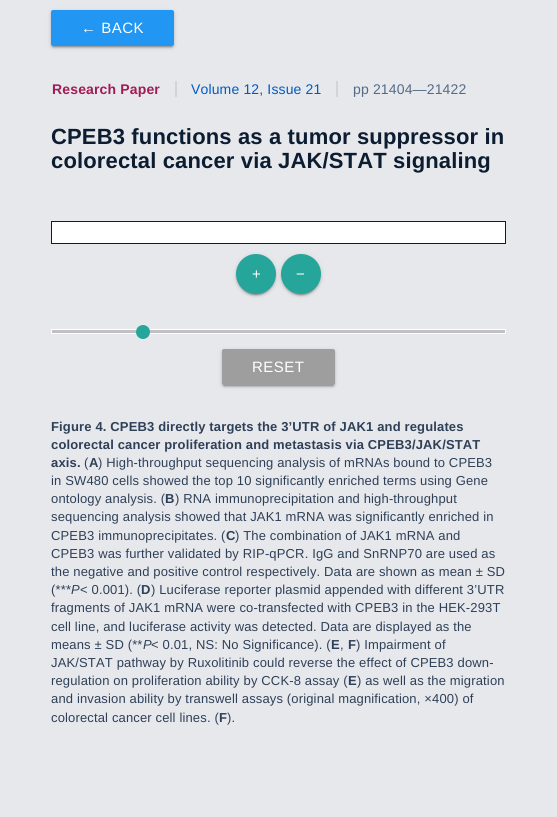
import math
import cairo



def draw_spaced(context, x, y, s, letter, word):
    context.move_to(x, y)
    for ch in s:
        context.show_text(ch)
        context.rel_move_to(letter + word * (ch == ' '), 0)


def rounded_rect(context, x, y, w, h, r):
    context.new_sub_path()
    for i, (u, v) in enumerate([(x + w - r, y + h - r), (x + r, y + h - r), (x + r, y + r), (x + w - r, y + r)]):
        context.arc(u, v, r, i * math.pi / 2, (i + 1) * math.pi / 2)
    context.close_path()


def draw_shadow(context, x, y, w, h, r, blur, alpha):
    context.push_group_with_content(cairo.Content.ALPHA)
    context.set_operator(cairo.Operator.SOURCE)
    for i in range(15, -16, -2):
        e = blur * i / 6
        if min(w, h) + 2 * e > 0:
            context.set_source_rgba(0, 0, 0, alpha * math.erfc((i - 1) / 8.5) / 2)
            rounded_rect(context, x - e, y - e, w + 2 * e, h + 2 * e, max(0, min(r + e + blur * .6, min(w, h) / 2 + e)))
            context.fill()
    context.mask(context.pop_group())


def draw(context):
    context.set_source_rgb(231 / 255, 232 / 255, 236 / 255)
    context.paint()
    context.set_source_rgb(0, 0, 0)
    draw_shadow(context, 53, 15, 119, 32, 0, 0.5, 0.2)
    draw_shadow(context, 51, 11, 123, 36, 2, 2.5, 0.12)
    draw_shadow(context, 51, 12, 123, 36, 2, 1, 0.14)
    context.set_source_rgb(33 / 255, 150 / 255, 243 / 255)
    rounded_rect(context, 51, 10, 123, 36, 2)
    context.fill()
    context.set_source_rgb(209 / 255, 212 / 255, 217 / 255)
    context.rectangle(175, 81, 2, 16)
    context.fill()
    context.rectangle(336, 81, 2, 16)
    context.fill()
    context.set_source_rgb(1, 1, 1)
    context.rectangle(51.5, 221.5, 454, 22)
    context.fill_preserve()
    context.set_source_rgb(12 / 255, 29 / 255, 49 / 255)
    context.set_line_width(1)
    context.stroke()
    context.set_source_rgb(0, 0, 0)
    draw_shadow(context, 238, 259, 36, 36, 18, 0.5, 0.2)
    draw_shadow(context, 236, 255, 40, 40, 20, 2.5, 0.12)
    draw_shadow(context, 236, 256, 40, 40, 20, 1, 0.14)
    context.set_source_rgb(38 / 255, 166 / 255, 154 / 255)
    context.arc(256, 274, 20, 0, 2 * math.pi)
    context.fill()
    context.set_source_rgb(0, 0, 0)
    draw_shadow(context, 283, 259, 36, 36, 18, 0.5, 0.2)
    draw_shadow(context, 281, 255, 40, 40, 20, 2.5, 0.12)
    draw_shadow(context, 281, 256, 40, 40, 20, 1, 0.14)
    context.set_source_rgb(38 / 255, 166 / 255, 154 / 255)
    context.arc(301, 274, 20, 0, 2 * math.pi)
    context.fill()
    context.rectangle(51.5, 329.5, 454, 4)
    context.set_source_rgb(1, 1, 1)
    context.stroke()
    context.set_source_rgb(194 / 255, 192 / 255, 194 / 255)
    context.rectangle(52, 330, 453, 3)
    context.fill()
    context.set_source_rgb(38 / 255, 166 / 255, 154 / 255)
    context.arc(143, 332, 7, 0, 2 * math.pi)
    context.fill()
    context.set_source_rgb(0, 0, 0)
    draw_shadow(context, 224, 354, 109, 32, 0, 0.5, 0.2)
    draw_shadow(context, 222, 350, 113, 36, 2, 2.5, 0.12)
    draw_shadow(context, 222, 351, 113, 36, 2, 1, 0.14)
    context.set_source_rgb(158 / 255, 158 / 255, 158 / 255)
    rounded_rect(context, 222, 349, 113, 36, 2)
    context.fill()
    context.select_font_face("Liberation Sans")
    context.set_font_size(15)
    context.set_source_rgb(1, 1, 1)
    draw_spaced(context, 81, 33, "← BACK", 0.5, 0)
    context.select_font_face("Liberation Sans", cairo.FontSlant.NORMAL, cairo.FontWeight.BOLD)
    context.set_font_size(14)
    context.set_source_rgb(161 / 255, 27 / 255, 87 / 255)
    draw_spaced(context, 52, 94, "Research Paper", 0.15, 0)
    context.select_font_face("Liberation Sans")
    context.set_source_rgb(0, 90 / 255, 194 / 255)
    draw_spaced(context, 191, 94, "Volume 12, Issue 21", 0.15, 0)
    context.set_source_rgb(84 / 255, 107 / 255, 135 / 255)
    draw_spaced(context, 353, 94, "pp 21404—21422", 0.15, 0)
    context.select_font_face("Liberation Sans", cairo.FontSlant.NORMAL, cairo.FontWeight.BOLD)
    context.set_font_size(22)
    context.set_source_rgb(12 / 255, 29 / 255, 49 / 255)
    draw_spaced(context, 51, 144, "CPEB3 functions as a tumor suppressor in", 0.15, 0)
    draw_spaced(context, 51, 168, "colorectal cancer via JAK/STAT signaling", 0.15, 0)
    context.select_font_face("Liberation Sans")
    context.set_font_size(15)
    context.set_source_rgb(1, 1, 1)
    context.move_to(252, 279)
    context.show_text("+")
    context.move_to(296, 279)
    context.show_text("−")
    draw_spaced(context, 252, 372, "RESET", 0.5, 0)
    context.select_font_face("Liberation Sans", cairo.FontSlant.NORMAL, cairo.FontWeight.BOLD)
    context.set_font_size(13)
    context.set_source_rgb(46 / 255, 64 / 255, 87 / 255)
    draw_spaced(context, 51, 431, "Figure 4. CPEB3 directly targets the 3’UTR of JAK1 and regulates", 0.15, 0)
    draw_spaced(context, 51, 449, "colorectal cancer proliferation and metastasis via CPEB3/JAK/STAT", 0.15, 0)
    draw_spaced(context, 51, 467, "axis.", 0.15, 0)
    context.select_font_face("Liberation Sans")
    draw_spaced(context, 84, 467, "(", 0.15, 0)
    context.select_font_face("Liberation Sans", cairo.FontSlant.NORMAL, cairo.FontWeight.BOLD)
    draw_spaced(context, 89, 467, "A", 0.15, 0)
    context.select_font_face("Liberation Sans")
    draw_spaced(context, 98, 467, ") High-throughput sequencing analysis of mRNAs bound to CPEB3", 0.15, 0)
    draw_spaced(context, 51, 485, "in SW480 cells showed the top 10 significantly enriched terms using Gene", 0.15, 0)
    draw_spaced(context, 51, 503, "ontology analysis. (", 0.15, 0)
    context.select_font_face("Liberation Sans", cairo.FontSlant.NORMAL, cairo.FontWeight.BOLD)
    draw_spaced(context, 165, 503, "B", 0.15, 0)
    context.select_font_face("Liberation Sans")
    draw_spaced(context, 175, 503, ") RNA immunoprecipitation and high-throughput", 0.15, 0)
    draw_spaced(context, 51, 521, "sequencing analysis showed that JAK1 mRNA was significantly enriched in", 0.15, 0)
    draw_spaced(context, 51, 540, "CPEB3 immunoprecipitates. (", 0.15, 0)
    context.select_font_face("Liberation Sans", cairo.FontSlant.NORMAL, cairo.FontWeight.BOLD)
    draw_spaced(context, 226, 540, "C", 0.15, 0)
    context.select_font_face("Liberation Sans")
    draw_spaced(context, 235, 540, ") The combination of JAK1 mRNA and", 0.15, 0)
    draw_spaced(context, 51, 558, "CPEB3 was further validated by RIP-qPCR. IgG and SnRNP70 are used as", 0.15, 0)
    draw_spaced(context, 51, 576, "the negative and positive control respectively. Data are shown as mean ± SD", 0.15, 0)
    draw_spaced(context, 51, 594, "(***", 0.15, 0)
    context.select_font_face("Liberation Sans", cairo.FontSlant.ITALIC)
    draw_spaced(context, 71, 594, "P", 0.15, 0)
    context.select_font_face("Liberation Sans")
    draw_spaced(context, 80, 594, "< 0.001). (", 0.15, 0)
    context.select_font_face("Liberation Sans", cairo.FontSlant.NORMAL, cairo.FontWeight.BOLD)
    draw_spaced(context, 141, 594, "D", 0.15, 0)
    context.select_font_face("Liberation Sans")
    draw_spaced(context, 151, 594, ") Luciferase reporter plasmid appended with different 3’UTR", 0.15, 0)
    draw_spaced(context, 51, 612, "fragments of JAK1 mRNA were co-transfected with CPEB3 in the HEK-293T", 0.15, 0)
    draw_spaced(context, 51, 631, "cell line, and luciferase activity was detected. Data are displayed as the", 0.15, 0)
    draw_spaced(context, 51, 649, "means ± SD (**", 0.15, 0)
    context.select_font_face("Liberation Sans", cairo.FontSlant.ITALIC)
    draw_spaced(context, 143, 649, "P", 0.15, 0)
    context.select_font_face("Liberation Sans")
    draw_spaced(context, 151, 649, "< 0.01, NS: No Significance). (", 0.15, 0)
    context.select_font_face("Liberation Sans", cairo.FontSlant.NORMAL, cairo.FontWeight.BOLD)
    draw_spaced(context, 331, 649, "E", 0.15, 0)
    context.select_font_face("Liberation Sans")
    draw_spaced(context, 340, 649, ",", 0.15, 0)
    context.select_font_face("Liberation Sans", cairo.FontSlant.NORMAL, cairo.FontWeight.BOLD)
    draw_spaced(context, 348, 649, "F", 0.15, 0)
    context.select_font_face("Liberation Sans")
    draw_spaced(context, 356, 649, ") Impairment of", 0.15, 0)
    draw_spaced(context, 51, 667, "JAK/STAT pathway by Ruxolitinib could reverse the effect of CPEB3 down-", 0.15, 0)
    draw_spaced(context, 51, 685, "regulation on proliferation ability by CCK-8 assay (", 0.15, 0)
    context.select_font_face("Liberation Sans", cairo.FontSlant.NORMAL, cairo.FontWeight.BOLD)
    draw_spaced(context, 348, 685, "E", 0.15, 0)
    context.select_font_face("Liberation Sans")
    draw_spaced(context, 357, 685, ") as well as the migration", 0.15, 0)
    draw_spaced(context, 51, 703, "and invasion ability by transwell assays (original magnification, ×400) of", 0.15, 0)
    draw_spaced(context, 51, 722, "colorectal cancer cell lines. (", 0.15, 0)
    context.select_font_face("Liberation Sans", cairo.FontSlant.NORMAL, cairo.FontWeight.BOLD)
    draw_spaced(context, 219, 722, "F", 0.15, 0)
    context.select_font_face("Liberation Sans")
    draw_spaced(context, 227, 722, ").", 0.15, 0)


surface = cairo.ImageSurface(cairo.Format.RGB24, 557, 817)
context = cairo.Context(surface)
options = cairo.FontOptions()
options.set_hint_metrics(cairo.HintMetrics.OFF)
options.set_hint_style(cairo.HintStyle.NONE)
context.set_font_options(options)
context.set_miter_limit(4)
draw(context)
surface.write_to_png("out.png")
